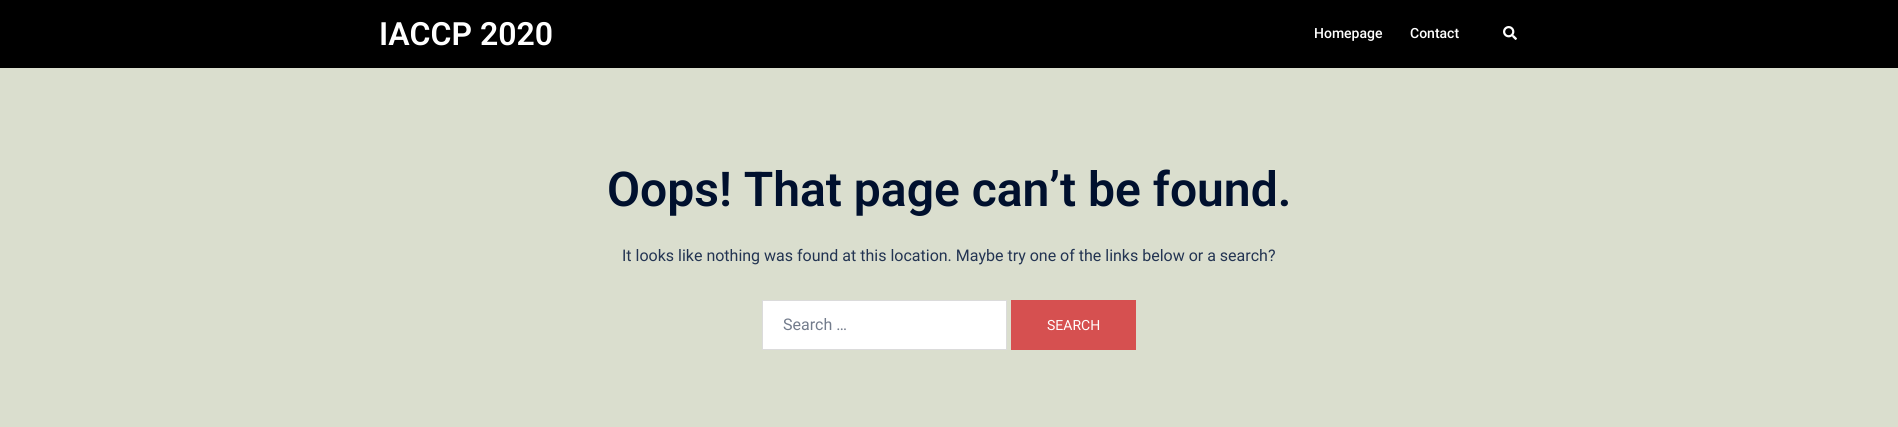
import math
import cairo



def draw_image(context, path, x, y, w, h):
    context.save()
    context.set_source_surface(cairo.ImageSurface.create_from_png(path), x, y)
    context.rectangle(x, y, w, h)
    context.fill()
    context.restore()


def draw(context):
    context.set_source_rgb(218 / 255, 222 / 255, 206 / 255)
    context.paint()
    context.set_source_rgb(0, 0, 0)
    context.rectangle(0, 0, 1898, 68)
    context.fill()
    draw_image(context, "images/1.png", 1503, 26, 14, 14)
    context.set_source_rgb(1, 1, 1)
    context.rectangle(762.5, 300.5, 244, 49)
    context.fill_preserve()
    context.set_source_rgb(219 / 255, 219 / 255, 219 / 255)
    context.set_line_width(1)
    context.stroke()
    context.set_source_rgb(214 / 255, 80 / 255, 80 / 255)
    context.rectangle(1011, 300, 125, 50)
    context.fill()
    context.select_font_face("Roboto SemiBold")
    context.set_font_size(32)
    context.set_source_rgb(1, 1, 1)
    context.move_to(379, 45)
    context.show_text("IACCP 2020")
    context.select_font_face("Roboto Medium")
    context.set_font_size(14)
    context.move_to(1314, 38)
    context.show_text("Homepage")
    context.move_to(1410, 38)
    context.show_text("Contact")
    context.select_font_face("Roboto SemiBold")
    context.set_font_size(48)
    context.set_source_rgb(0, 16 / 255, 46 / 255)
    context.move_to(607, 206)
    context.show_text("Oops! That page can’t be found.")
    context.select_font_face("Roboto")
    context.set_font_size(16)
    context.set_source_rgb(35 / 255, 52 / 255, 82 / 255)
    context.move_to(622, 261)
    context.show_text("It looks like nothing was found at this location. Maybe try one of the links below or a search?")
    context.set_source_rgb(115 / 255, 124 / 255, 140 / 255)
    context.move_to(783, 330)
    context.show_text("Search …")
    context.set_font_size(14)
    context.set_source_rgb(1, 1, 1)
    context.move_to(1047, 330)
    context.show_text("SEARCH")


surface = cairo.ImageSurface(cairo.Format.RGB24, 1898, 427)
context = cairo.Context(surface)
options = cairo.FontOptions()
options.set_hint_metrics(cairo.HintMetrics.OFF)
options.set_hint_style(cairo.HintStyle.NONE)
context.set_font_options(options)
context.set_miter_limit(4)
draw(context)
surface.write_to_png("out.png")
